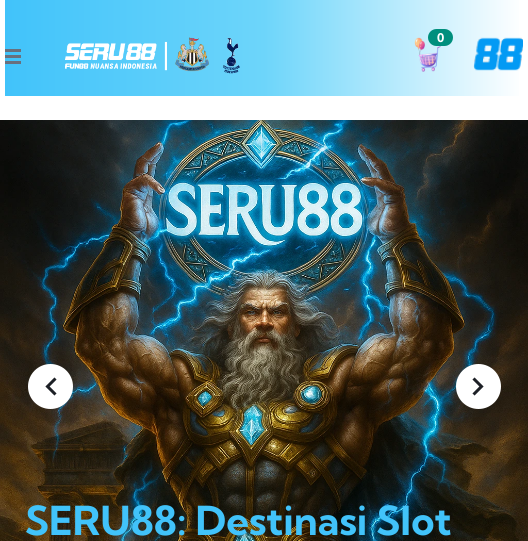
import math
import cairo



def rounded_rect(context, x, y, w, h, r):
    context.new_sub_path()
    for i, (u, v) in enumerate([(x + w - r, y + h - r), (x + r, y + h - r), (x + r, y + r), (x + w - r, y + r)]):
        context.arc(u, v, r, i * math.pi / 2, (i + 1) * math.pi / 2)
    context.close_path()


def draw_image(context, path, x, y, w, h):
    context.save()
    context.set_source_surface(cairo.ImageSurface.create_from_png(path), x, y)
    context.rectangle(x, y, w, h)
    context.fill()
    context.restore()


def draw(context):
    context.set_source_rgb(1, 1, 1)
    context.paint()
    gradient = cairo.LinearGradient(5, 48, 523, 48)
    gradient.add_color_stop_rgba(0, 65 / 255, 195 / 255, 250 / 255, 1)
    gradient.add_color_stop_rgba(0.5, 109 / 255, 213 / 255, 250 / 255, 1)
    gradient.add_color_stop_rgba(1, 1, 1, 1, 1)
    context.set_source(gradient)
    context.rectangle(5, 0, 514, 96)
    context.fill()
    draw_image(context, "images/1.png", 5, 49, 16, 15)
    draw_image(context, "images/2.png", 65, 37, 175, 37)
    draw_image(context, "images/3.png", 414, 37, 27, 35)
    context.set_source_rgb(0, 143 / 255, 125 / 255)
    rounded_rect(context, 428, 29, 25, 17, 8.5)
    context.fill()
    draw_image(context, "images/4.png", 473, 37, 50, 34)
    draw_image(context, "images/5.png", 0, 120, 528, 421)
    context.set_source_rgb(1, 1, 1)
    context.arc(50.5, 386.5, 22.5, 0, 2 * math.pi)
    context.fill()
    context.new_path()
    context.move_to(55.5, 378.5)
    context.line_to(47.5, 386.5)
    context.line_to(55.5, 394.5)
    context.set_source_rgb(29 / 255, 32 / 255, 38 / 255)
    context.set_line_width(3)
    context.stroke()
    context.set_source_rgb(1, 1, 1)
    context.arc(478.5, 386.5, 22.5, 0, 2 * math.pi)
    context.fill()
    context.new_path()
    context.move_to(473.5, 378.5)
    context.line_to(481.5, 386.5)
    context.line_to(473.5, 394.5)
    context.set_source_rgb(29 / 255, 32 / 255, 38 / 255)
    context.stroke()
    context.select_font_face("Kumbh Sans", cairo.FontSlant.NORMAL, cairo.FontWeight.BOLD)
    context.set_font_size(12)
    context.set_source_rgb(1, 1, 1)
    context.move_to(437, 42)
    context.show_text("0")
    context.set_font_size(40)
    context.set_source_rgb(65 / 255, 195 / 255, 250 / 255)
    context.move_to(25, 535)
    context.show_text("SERU88: Destinasi Slot")


surface = cairo.ImageSurface(cairo.Format.RGB24, 528, 541)
context = cairo.Context(surface)
options = cairo.FontOptions()
options.set_hint_metrics(cairo.HintMetrics.OFF)
options.set_hint_style(cairo.HintStyle.NONE)
context.set_font_options(options)
context.set_miter_limit(4)
draw(context)
surface.write_to_png("out.png")
